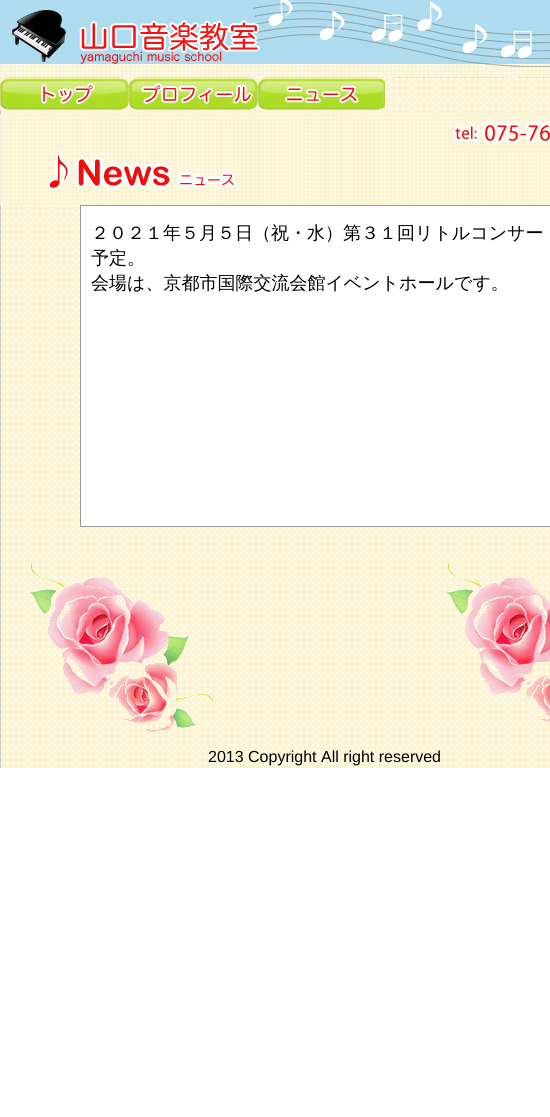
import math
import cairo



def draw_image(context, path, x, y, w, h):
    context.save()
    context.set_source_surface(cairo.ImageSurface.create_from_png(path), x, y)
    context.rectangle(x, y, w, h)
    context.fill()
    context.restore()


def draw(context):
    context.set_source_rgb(1, 1, 1)
    context.paint()
    draw_image(context, "images/1.png", 0, 78, 550, 690)
    draw_image(context, "images/2.png", 0, 0, 259, 78)
    draw_image(context, "images/3.png", 259, 0, 291, 78)
    draw_image(context, "images/4.png", 0, 78, 129, 32)
    draw_image(context, "images/5.png", 129, 78, 129, 32)
    draw_image(context, "images/6.png", 258, 78, 127, 32)
    draw_image(context, "images/7.png", 0, 114, 550, 91)
    context.set_source_rgb(1, 1, 1)
    context.rectangle(80.5, 205.5, 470, 321)
    context.fill_preserve()
    context.set_source_rgb(153 / 255, 153 / 255, 153 / 255)
    context.set_line_width(1)
    context.stroke()
    draw_image(context, "images/8.png", 30, 563, 183, 169)
    draw_image(context, "images/9.png", 447, 563, 103, 159)
    context.select_font_face("WenQuanYi Zen Hei Medium")
    context.set_font_size(18)
    context.set_source_rgb(0, 0, 0)
    context.move_to(91, 239)
    context.show_text("２０２１年５月５日（祝・水）第３１回リトルコンサー")
    context.move_to(91, 264)
    context.show_text("予定。")
    context.move_to(91, 289)
    context.show_text("会場は、京都市国際交流会館イベントホールです。")
    context.select_font_face("Liberation Sans")
    context.set_font_size(16)
    context.move_to(208, 762)
    context.show_text("2013 Copyright All right reserved")


surface = cairo.ImageSurface(cairo.Format.RGB24, 550, 1117)
context = cairo.Context(surface)
options = cairo.FontOptions()
options.set_hint_metrics(cairo.HintMetrics.OFF)
options.set_hint_style(cairo.HintStyle.NONE)
context.set_font_options(options)
context.set_miter_limit(4)
draw(context)
surface.write_to_png("out.png")
